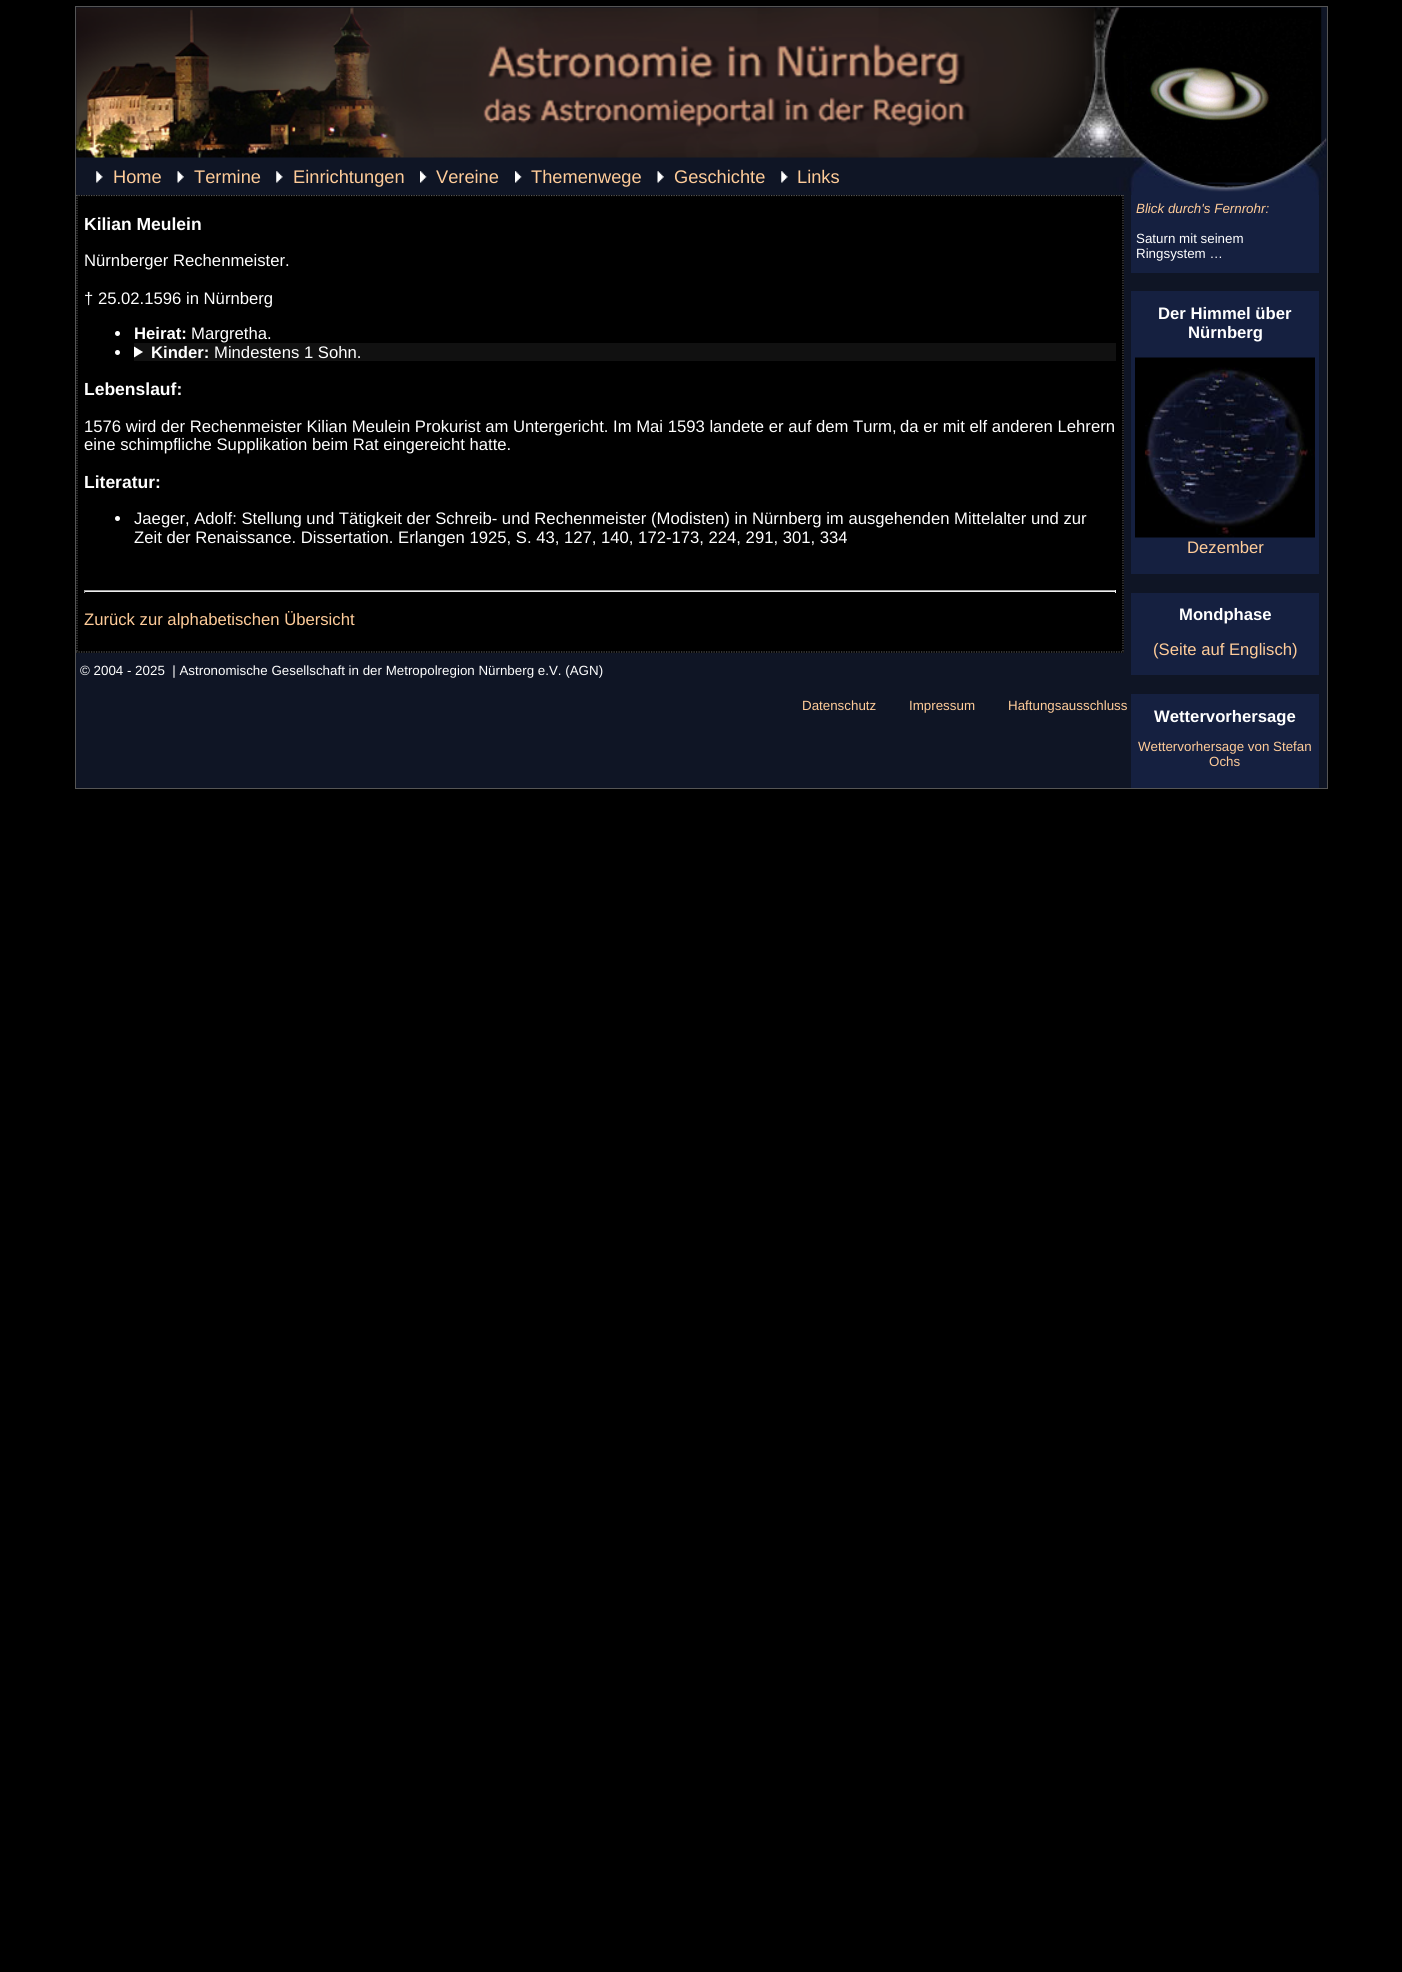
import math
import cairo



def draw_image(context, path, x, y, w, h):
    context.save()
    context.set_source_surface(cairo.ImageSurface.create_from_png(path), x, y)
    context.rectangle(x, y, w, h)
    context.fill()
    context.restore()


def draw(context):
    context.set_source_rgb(0, 0, 0)
    context.paint()
    context.set_source_rgb(15 / 255, 21 / 255, 37 / 255)
    context.rectangle(75.5, 6.5, 1252, 782)
    context.fill_preserve()
    context.set_source_rgb(85 / 255, 85 / 255, 85 / 255)
    context.set_line_width(1)
    context.stroke()
    draw_image(context, "images/7.png", 1102, 7, 220, 176)
    context.set_source_rgb(0, 0, 0)
    context.rectangle(76, 195, 1048, 458)
    context.fill()
    context.new_path()
    context.move_to(76, 195.5)
    context.line_to(1124, 195.5)
    context.set_source_rgb(85 / 255, 85 / 255, 85 / 255)
    context.set_line_width(1.2)
    context.set_dash([1.25, 1.25])
    context.stroke()
    draw_image(context, "images/1.png", 76, 7, 1251, 188)
    draw_image(context, "images/2.png", 96, 171, 7, 12)
    draw_image(context, "images/3.png", 177, 171, 7, 12)
    draw_image(context, "images/2.png", 276, 171, 7, 12)
    draw_image(context, "images/4.png", 420, 171, 7, 12)
    draw_image(context, "images/5.png", 515, 171, 7, 12)
    draw_image(context, "images/3.png", 657, 171, 7, 12)
    draw_image(context, "images/6.png", 781, 171, 7, 12)
    context.new_path()
    context.move_to(1123, 195)
    context.line_to(1123, 652.5)
    context.stroke()
    context.new_path()
    context.move_to(76, 652)
    context.line_to(1124, 652)
    context.stroke()
    context.new_path()
    context.move_to(77, 195)
    context.line_to(77, 652.5)
    context.stroke()
    context.set_source_rgb(1, 1, 1)
    context.arc(117.5, 333.5, 2.5, 0, 2 * math.pi)
    context.fill()
    context.arc(117.5, 352.5, 2.5, 0, 2 * math.pi)
    context.fill()
    context.set_source_rgb(17 / 255, 17 / 255, 17 / 255)
    context.rectangle(134, 343, 982, 18)
    context.fill()
    context.set_source_rgb(1, 1, 1)
    context.new_path()
    context.move_to(134, 346.5)
    context.line_to(143, 352)
    context.line_to(134, 357.5)
    context.close_path()
    context.fill()
    context.arc(117.5, 518.5, 2.5, 0, 2 * math.pi)
    context.fill()
    context.set_source_rgb(159 / 255, 159 / 255, 159 / 255)
    context.rectangle(84, 590, 1032, 1)
    context.fill()
    context.set_source_rgb(238 / 255, 238 / 255, 238 / 255)
    context.rectangle(1115, 590, 1, 3)
    context.fill()
    context.rectangle(84, 591, 1032, 1)
    context.fill()
    context.set_source_rgb(159 / 255, 159 / 255, 159 / 255)
    context.rectangle(84, 590, 1, 3)
    context.fill()
    context.set_source_rgb(21 / 255, 32 / 255, 64 / 255)
    context.rectangle(1131, 195, 188, 593)
    context.fill()
    context.set_source_rgb(15 / 255, 21 / 255, 37 / 255)
    context.rectangle(1131, 273, 188, 18)
    context.fill()
    draw_image(context, "images/8.png", 1135, 357, 180, 181)
    context.rectangle(1131, 574, 188, 19)
    context.fill()
    context.rectangle(1131, 675, 188, 19)
    context.fill()
    context.select_font_face("Liberation Sans")
    context.set_font_size(18.25)
    context.set_source_rgb(1, 204 / 255, 153 / 255)
    context.move_to(113, 183)
    context.show_text("Home")
    context.move_to(194, 183)
    context.show_text("Termine")
    context.move_to(293, 183)
    context.show_text("Einrichtungen")
    context.move_to(436, 183)
    context.show_text("Vereine")
    context.move_to(531, 183)
    context.show_text("Themenwege")
    context.move_to(674, 183)
    context.show_text("Geschichte")
    context.move_to(797, 183)
    context.show_text("Links")
    context.select_font_face("Liberation Sans", cairo.FontSlant.NORMAL, cairo.FontWeight.BOLD)
    context.set_font_size(17.5)
    context.set_source_rgb(1, 1, 1)
    context.move_to(84, 230)
    context.show_text("Kilian Meulein")
    context.select_font_face("Liberation Sans")
    context.set_font_size(16.67)
    context.move_to(84, 266)
    context.show_text("Nürnberger Rechenmeister.")
    context.move_to(84, 304)
    context.show_text("† 25.02.1596 in Nürnberg")
    context.select_font_face("Liberation Sans", cairo.FontSlant.NORMAL, cairo.FontWeight.BOLD)
    context.move_to(134, 339)
    context.show_text("Heirat:")
    context.select_font_face("Liberation Sans")
    context.move_to(191, 339)
    context.show_text("Margretha.")
    context.select_font_face("Liberation Sans", cairo.FontSlant.NORMAL, cairo.FontWeight.BOLD)
    context.move_to(151, 358)
    context.show_text("Kinder:")
    context.select_font_face("Liberation Sans")
    context.move_to(214, 358)
    context.show_text("Mindestens 1 Sohn.")
    context.select_font_face("Liberation Sans", cairo.FontSlant.NORMAL, cairo.FontWeight.BOLD)
    context.set_font_size(17.5)
    context.move_to(84, 395)
    context.show_text("Lebenslauf:")
    context.select_font_face("Liberation Sans")
    context.set_font_size(16.67)
    context.move_to(84, 432)
    context.show_text("1576 wird der Rechenmeister Kilian Meulein Prokurist am Untergericht. Im Mai 1593 landete er auf dem Turm,")
    context.move_to(900, 432)
    context.show_text("da er mit elf anderen Lehrern")
    context.move_to(84, 450)
    context.show_text("eine schimpfliche Supplikation beim Rat eingereicht hatte.")
    context.select_font_face("Liberation Sans", cairo.FontSlant.NORMAL, cairo.FontWeight.BOLD)
    context.set_font_size(17.5)
    context.move_to(84, 488)
    context.show_text("Literatur:")
    context.select_font_face("Liberation Sans")
    context.set_font_size(16.67)
    context.move_to(134, 524)
    context.show_text("Jaeger, Adolf: Stellung und Tätigkeit der Schreib- und Rechenmeister (Modisten) in Nürnberg im ausgehenden Mittelalter und zur")
    context.move_to(134, 543)
    context.show_text("Zeit der Renaissance. Dissertation. Erlangen 1925, S. 43, 127, 140, 172-173, 224, 291, 301, 334")
    context.set_source_rgb(1, 204 / 255, 153 / 255)
    context.move_to(84, 625)
    context.show_text("Zurück zur alphabetischen Übersicht")
    context.select_font_face("Liberation Sans", cairo.FontSlant.ITALIC)
    context.set_font_size(13.35)
    context.move_to(1136, 213)
    context.show_text("Blick durch's Fernrohr:")
    context.select_font_face("Liberation Sans")
    context.set_source_rgb(1, 1, 1)
    context.move_to(1136, 243)
    context.show_text("Saturn mit seinem")
    context.move_to(1136, 258)
    context.show_text("Ringsystem …")
    context.select_font_face("Liberation Sans", cairo.FontSlant.NORMAL, cairo.FontWeight.BOLD)
    context.set_font_size(16.67)
    context.move_to(1158, 319)
    context.show_text("Der Himmel über")
    context.move_to(1188, 338)
    context.show_text("Nürnberg")
    context.select_font_face("Liberation Sans")
    context.set_source_rgb(1, 204 / 255, 153 / 255)
    context.move_to(1187, 553)
    context.show_text("Dezember")
    context.select_font_face("Liberation Sans", cairo.FontSlant.NORMAL, cairo.FontWeight.BOLD)
    context.set_source_rgb(1, 1, 1)
    context.move_to(1179, 620)
    context.show_text("Mondphase")
    context.select_font_face("Liberation Sans")
    context.set_source_rgb(1, 204 / 255, 153 / 255)
    context.move_to(1153, 655)
    context.show_text("(Seite auf Englisch)")
    context.select_font_face("Liberation Sans", cairo.FontSlant.NORMAL, cairo.FontWeight.BOLD)
    context.set_source_rgb(1, 1, 1)
    context.move_to(1154, 722)
    context.show_text("Wettervorhersage")
    context.select_font_face("Liberation Sans")
    context.set_font_size(13.35)
    context.set_source_rgb(1, 204 / 255, 153 / 255)
    context.move_to(1138, 751)
    context.show_text("Wettervorhersage von Stefan")
    context.move_to(1209, 766)
    context.show_text("Ochs")
    context.set_source_rgb(1, 1, 1)
    context.move_to(80, 675)
    context.show_text("© 2004 - 2025  | Astronomische Gesellschaft in der Metropolregion Nürnberg e.V. (AGN)")
    context.set_source_rgb(1, 204 / 255, 153 / 255)
    context.move_to(802, 710)
    context.show_text("Datenschutz")
    context.move_to(909, 710)
    context.show_text("Impressum")
    context.move_to(1008, 710)
    context.show_text("Haftungsausschluss")


surface = cairo.ImageSurface(cairo.Format.RGB24, 1402, 1972)
context = cairo.Context(surface)
options = cairo.FontOptions()
options.set_hint_metrics(cairo.HintMetrics.OFF)
options.set_hint_style(cairo.HintStyle.NONE)
context.set_font_options(options)
context.set_miter_limit(4)
draw(context)
surface.write_to_png("out.png")
